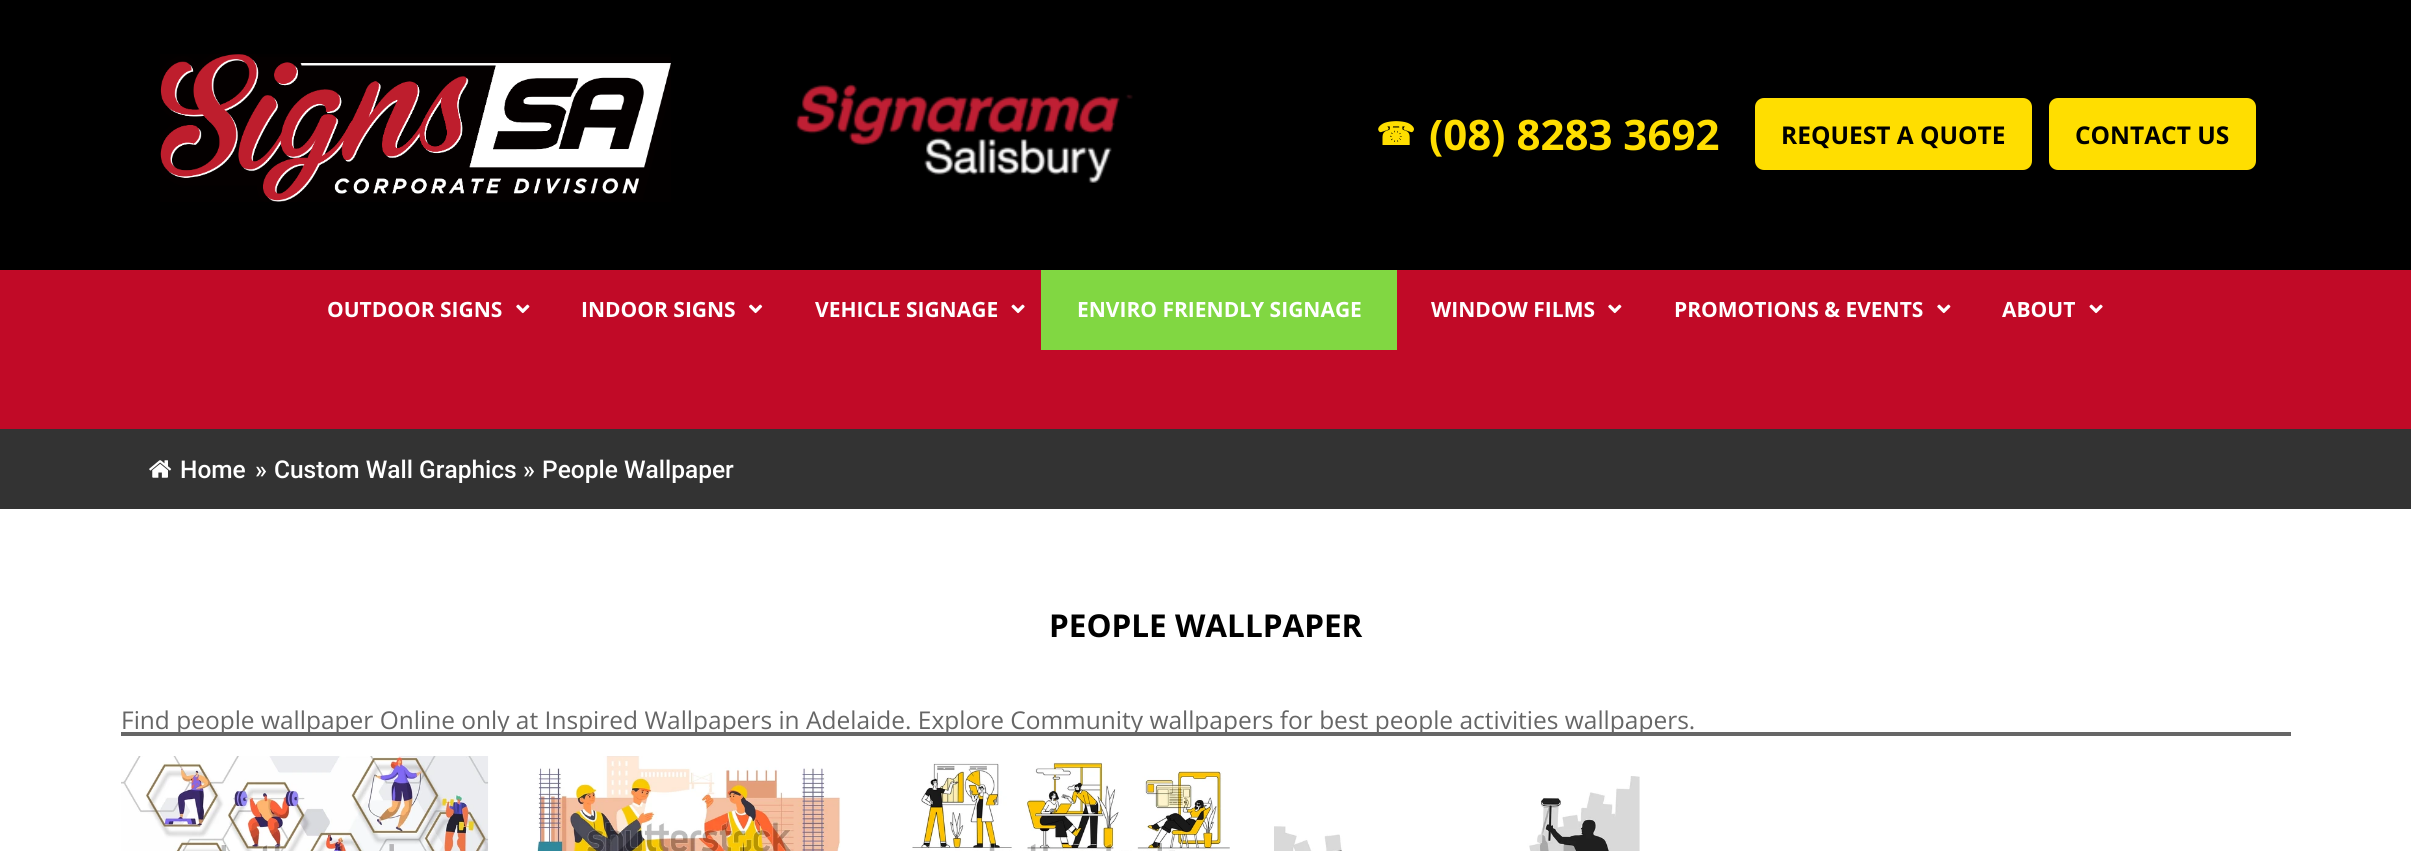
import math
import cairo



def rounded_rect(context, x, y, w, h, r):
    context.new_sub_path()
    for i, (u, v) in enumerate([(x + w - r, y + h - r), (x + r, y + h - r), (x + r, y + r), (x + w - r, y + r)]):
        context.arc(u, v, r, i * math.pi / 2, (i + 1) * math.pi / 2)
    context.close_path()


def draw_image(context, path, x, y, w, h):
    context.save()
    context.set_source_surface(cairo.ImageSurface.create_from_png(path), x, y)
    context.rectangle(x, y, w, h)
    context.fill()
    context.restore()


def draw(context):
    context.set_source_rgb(1, 1, 1)
    context.paint()
    context.set_source_rgb(0, 0, 0)
    context.rectangle(0, 0, 2411, 270)
    context.fill()
    draw_image(context, "images/1.png", 160, 54, 511, 148)
    draw_image(context, "images/2.png", 795, 83, 338, 100)
    context.set_source_rgb(1, 222 / 255, 0)
    rounded_rect(context, 1755, 98, 277, 72, 9)
    context.fill()
    rounded_rect(context, 2049, 98, 207, 72, 9)
    context.fill()
    context.set_source_rgb(193 / 255, 10 / 255, 39 / 255)
    context.rectangle(0, 270, 2411, 159)
    context.fill()
    draw_image(context, "images/3.png", 516, 304, 14, 10)
    draw_image(context, "images/4.png", 749, 304, 14, 10)
    draw_image(context, "images/5.png", 1011, 304, 14, 10)
    context.set_source_rgb(129 / 255, 215 / 255, 66 / 255)
    context.rectangle(1041, 270, 356, 80)
    context.fill()
    draw_image(context, "images/3.png", 1608, 304, 14, 10)
    draw_image(context, "images/3.png", 1937, 304, 14, 10)
    draw_image(context, "images/5.png", 2089, 304, 14, 10)
    context.set_source_rgb(51 / 255, 51 / 255, 51 / 255)
    context.rectangle(0, 429, 2411, 80)
    context.fill()
    draw_image(context, "images/6.png", 149, 460, 23, 18)
    context.set_source_rgb(102 / 255, 102 / 255, 102 / 255)
    context.rectangle(121, 732, 2170, 4)
    context.fill()
    draw_image(context, "images/7.png", 121, 756, 368, 95)
    draw_image(context, "images/8.png", 537, 756, 304, 95)
    draw_image(context, "images/9.png", 912, 762, 318, 89)
    draw_image(context, "images/10.png", 1274, 776, 366, 75)
    context.select_font_face("DejaVu Sans", cairo.FontSlant.NORMAL, cairo.FontWeight.BOLD)
    context.set_font_size(31.5)
    context.set_source_rgb(1, 222 / 255, 0)
    context.move_to(1376, 145)
    context.show_text("☎")
    context.select_font_face("Open Sans", cairo.FontSlant.NORMAL, cairo.FontWeight.BOLD)
    context.set_font_size(42)
    context.move_to(1429, 150)
    context.show_text("(08) 8283 3692")
    context.set_font_size(24.5)
    context.set_source_rgb(0, 0, 0)
    context.move_to(1781, 144)
    context.show_text("REQUEST A QUOTE")
    context.move_to(2075, 144)
    context.show_text("CONTACT US")
    context.set_font_size(21)
    context.set_source_rgb(1, 1, 1)
    context.move_to(327, 317)
    context.show_text("OUTDOOR SIGNS")
    context.move_to(581, 317)
    context.show_text("INDOOR SIGNS")
    context.move_to(815, 317)
    context.show_text("VEHICLE SIGNAGE")
    context.move_to(1077, 317)
    context.show_text("ENVIRO FRIENDLY SIGNAGE")
    context.move_to(1431, 317)
    context.show_text("WINDOW FILMS")
    context.move_to(1674, 317)
    context.show_text("PROMOTIONS & EVENTS")
    context.move_to(2002, 317)
    context.show_text("ABOUT")
    context.select_font_face("Roboto Medium")
    context.set_font_size(24.5)
    context.move_to(180, 478)
    context.show_text("Home")
    context.move_to(255, 478)
    context.show_text("»")
    context.move_to(274, 478)
    context.show_text("Custom Wall Graphics")
    context.move_to(523, 478)
    context.show_text("»")
    context.move_to(542, 478)
    context.show_text("People Wallpaper")
    context.select_font_face("Open Sans", cairo.FontSlant.NORMAL, cairo.FontWeight.BOLD)
    context.set_font_size(31.5)
    context.set_source_rgb(0, 0, 0)
    context.move_to(1049, 637)
    context.show_text("PEOPLE WALLPAPER")
    context.select_font_face("Open Sans")
    context.set_font_size(24.5)
    context.set_source_rgb(102 / 255, 102 / 255, 102 / 255)
    context.move_to(121, 729)
    context.show_text("Find people wallpaper Online only at Inspired Wallpapers in Adelaide. Explore Community wallpapers for best people activities wallpapers.")


surface = cairo.ImageSurface(cairo.Format.RGB24, 2411, 851)
context = cairo.Context(surface)
options = cairo.FontOptions()
options.set_hint_metrics(cairo.HintMetrics.OFF)
options.set_hint_style(cairo.HintStyle.NONE)
context.set_font_options(options)
context.set_miter_limit(4)
draw(context)
surface.write_to_png("out.png")
